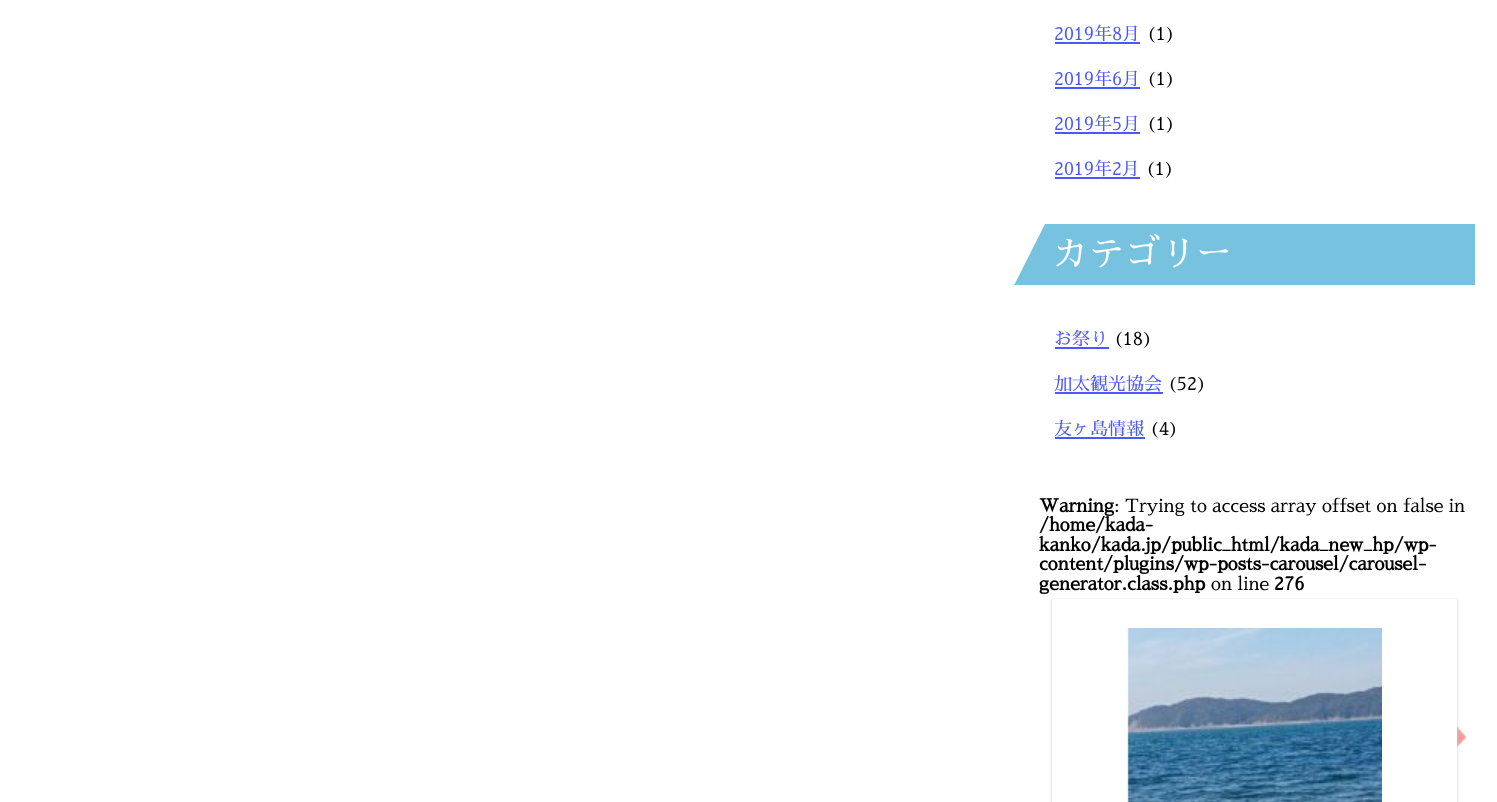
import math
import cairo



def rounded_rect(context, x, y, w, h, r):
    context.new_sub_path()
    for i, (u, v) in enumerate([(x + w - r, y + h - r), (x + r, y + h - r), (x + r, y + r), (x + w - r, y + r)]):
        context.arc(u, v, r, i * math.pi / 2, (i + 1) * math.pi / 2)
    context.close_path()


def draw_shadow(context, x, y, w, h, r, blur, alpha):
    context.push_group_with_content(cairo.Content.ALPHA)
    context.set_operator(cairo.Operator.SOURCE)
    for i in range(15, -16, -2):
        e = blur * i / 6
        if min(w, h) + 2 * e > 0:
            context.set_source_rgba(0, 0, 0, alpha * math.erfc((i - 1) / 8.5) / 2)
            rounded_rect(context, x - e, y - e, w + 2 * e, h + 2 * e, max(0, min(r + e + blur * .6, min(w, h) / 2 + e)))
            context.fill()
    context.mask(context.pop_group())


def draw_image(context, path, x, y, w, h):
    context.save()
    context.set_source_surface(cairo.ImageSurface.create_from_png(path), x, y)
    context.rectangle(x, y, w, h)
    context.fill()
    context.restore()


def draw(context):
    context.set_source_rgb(1, 1, 1)
    context.paint()
    context.set_source_rgb(76 / 255, 88 / 255, 1)
    context.rectangle(1055, 42, 85, 2)
    context.fill()
    context.rectangle(1055, 87, 85, 2)
    context.fill()
    context.rectangle(1055, 132, 85, 2)
    context.fill()
    context.rectangle(1055, 177, 85, 2)
    context.fill()
    context.set_source_rgb(119 / 255, 195 / 255, 223 / 255)
    context.rectangle(1014, 224, 461, 61)
    context.fill()
    context.set_source_rgb(1, 1, 1)
    context.new_path()
    context.move_to(987, 339)
    context.line_to(987, 220)
    context.line_to(1047, 220)
    context.close_path()
    context.fill()
    context.set_source_rgb(76 / 255, 88 / 255, 1)
    context.rectangle(1055, 347, 54, 2)
    context.fill()
    context.rectangle(1055, 392, 108, 2)
    context.fill()
    context.rectangle(1055, 437, 90, 2)
    context.fill()
    draw_image(context, "images/2.png", 1457, 726, 10, 22)
    context.set_source_rgb(204 / 255, 204 / 255, 204 / 255)
    draw_shadow(context, 1052, 600, 405, 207, 0, 1.5, 1)
    context.set_source_rgb(1, 1, 1)
    context.rectangle(1052, 599, 405, 203)
    context.fill()
    draw_image(context, "images/1.png", 1127, 628, 255, 174)
    context.select_font_face("Sawarabi Mincho")
    context.set_font_size(18)
    context.set_source_rgb(76 / 255, 88 / 255, 1)
    context.move_to(1054, 40)
    context.show_text("2019年8月")
    context.set_source_rgb(0, 0, 0)
    context.move_to(1146, 40)
    context.show_text("(1)")
    context.set_source_rgb(76 / 255, 88 / 255, 1)
    context.move_to(1054, 85)
    context.show_text("2019年6月")
    context.set_source_rgb(0, 0, 0)
    context.move_to(1146, 85)
    context.show_text("(1)")
    context.set_source_rgb(76 / 255, 88 / 255, 1)
    context.move_to(1054, 130)
    context.show_text("2019年5月")
    context.set_source_rgb(0, 0, 0)
    context.move_to(1146, 130)
    context.show_text("(1)")
    context.set_source_rgb(76 / 255, 88 / 255, 1)
    context.move_to(1054, 175)
    context.show_text("2019年2月")
    context.set_source_rgb(0, 0, 0)
    context.move_to(1145, 175)
    context.show_text("(1)")
    context.set_font_size(36)
    context.set_source_rgb(1, 1, 1)
    context.move_to(1052, 266)
    context.show_text("カテゴリー")
    context.set_font_size(18)
    context.set_source_rgb(76 / 255, 88 / 255, 1)
    context.move_to(1054, 345)
    context.show_text("お祭り")
    context.set_source_rgb(0, 0, 0)
    context.move_to(1113, 345)
    context.show_text("(18)")
    context.set_source_rgb(76 / 255, 88 / 255, 1)
    context.move_to(1054, 390)
    context.show_text("加太観光協会")
    context.set_source_rgb(0, 0, 0)
    context.move_to(1167, 390)
    context.show_text("(52)")
    context.set_source_rgb(76 / 255, 88 / 255, 1)
    context.move_to(1054, 435)
    context.show_text("友ヶ島情報")
    context.set_source_rgb(0, 0, 0)
    context.move_to(1149, 435)
    context.show_text("(4)")
    context.select_font_face("Sawarabi Mincho", cairo.FontSlant.NORMAL, cairo.FontWeight.BOLD)
    context.move_to(1039, 512)
    context.show_text("Warning")
    context.select_font_face("Sawarabi Mincho")
    context.move_to(1114, 512)
    context.show_text(": Trying to access array offset on false in")
    context.select_font_face("Sawarabi Mincho", cairo.FontSlant.NORMAL, cairo.FontWeight.BOLD)
    context.move_to(1039, 531)
    context.show_text("/home/kada-")
    context.move_to(1039, 551)
    context.show_text("kanko/kada.jp/public_html/kada_new_hp/wp-")
    context.move_to(1039, 570)
    context.show_text("content/plugins/wp-posts-carousel/carousel-")
    context.move_to(1039, 590)
    context.show_text("generator.class.php")
    context.select_font_face("Sawarabi Mincho")
    context.move_to(1211, 590)
    context.show_text("on line")
    context.select_font_face("Sawarabi Mincho", cairo.FontSlant.NORMAL, cairo.FontWeight.BOLD)
    context.move_to(1274, 590)
    context.show_text("276")


surface = cairo.ImageSurface(cairo.Format.RGB24, 1497, 802)
context = cairo.Context(surface)
options = cairo.FontOptions()
options.set_hint_metrics(cairo.HintMetrics.OFF)
options.set_hint_style(cairo.HintStyle.NONE)
context.set_font_options(options)
context.set_miter_limit(4)
draw(context)
surface.write_to_png("out.png")
